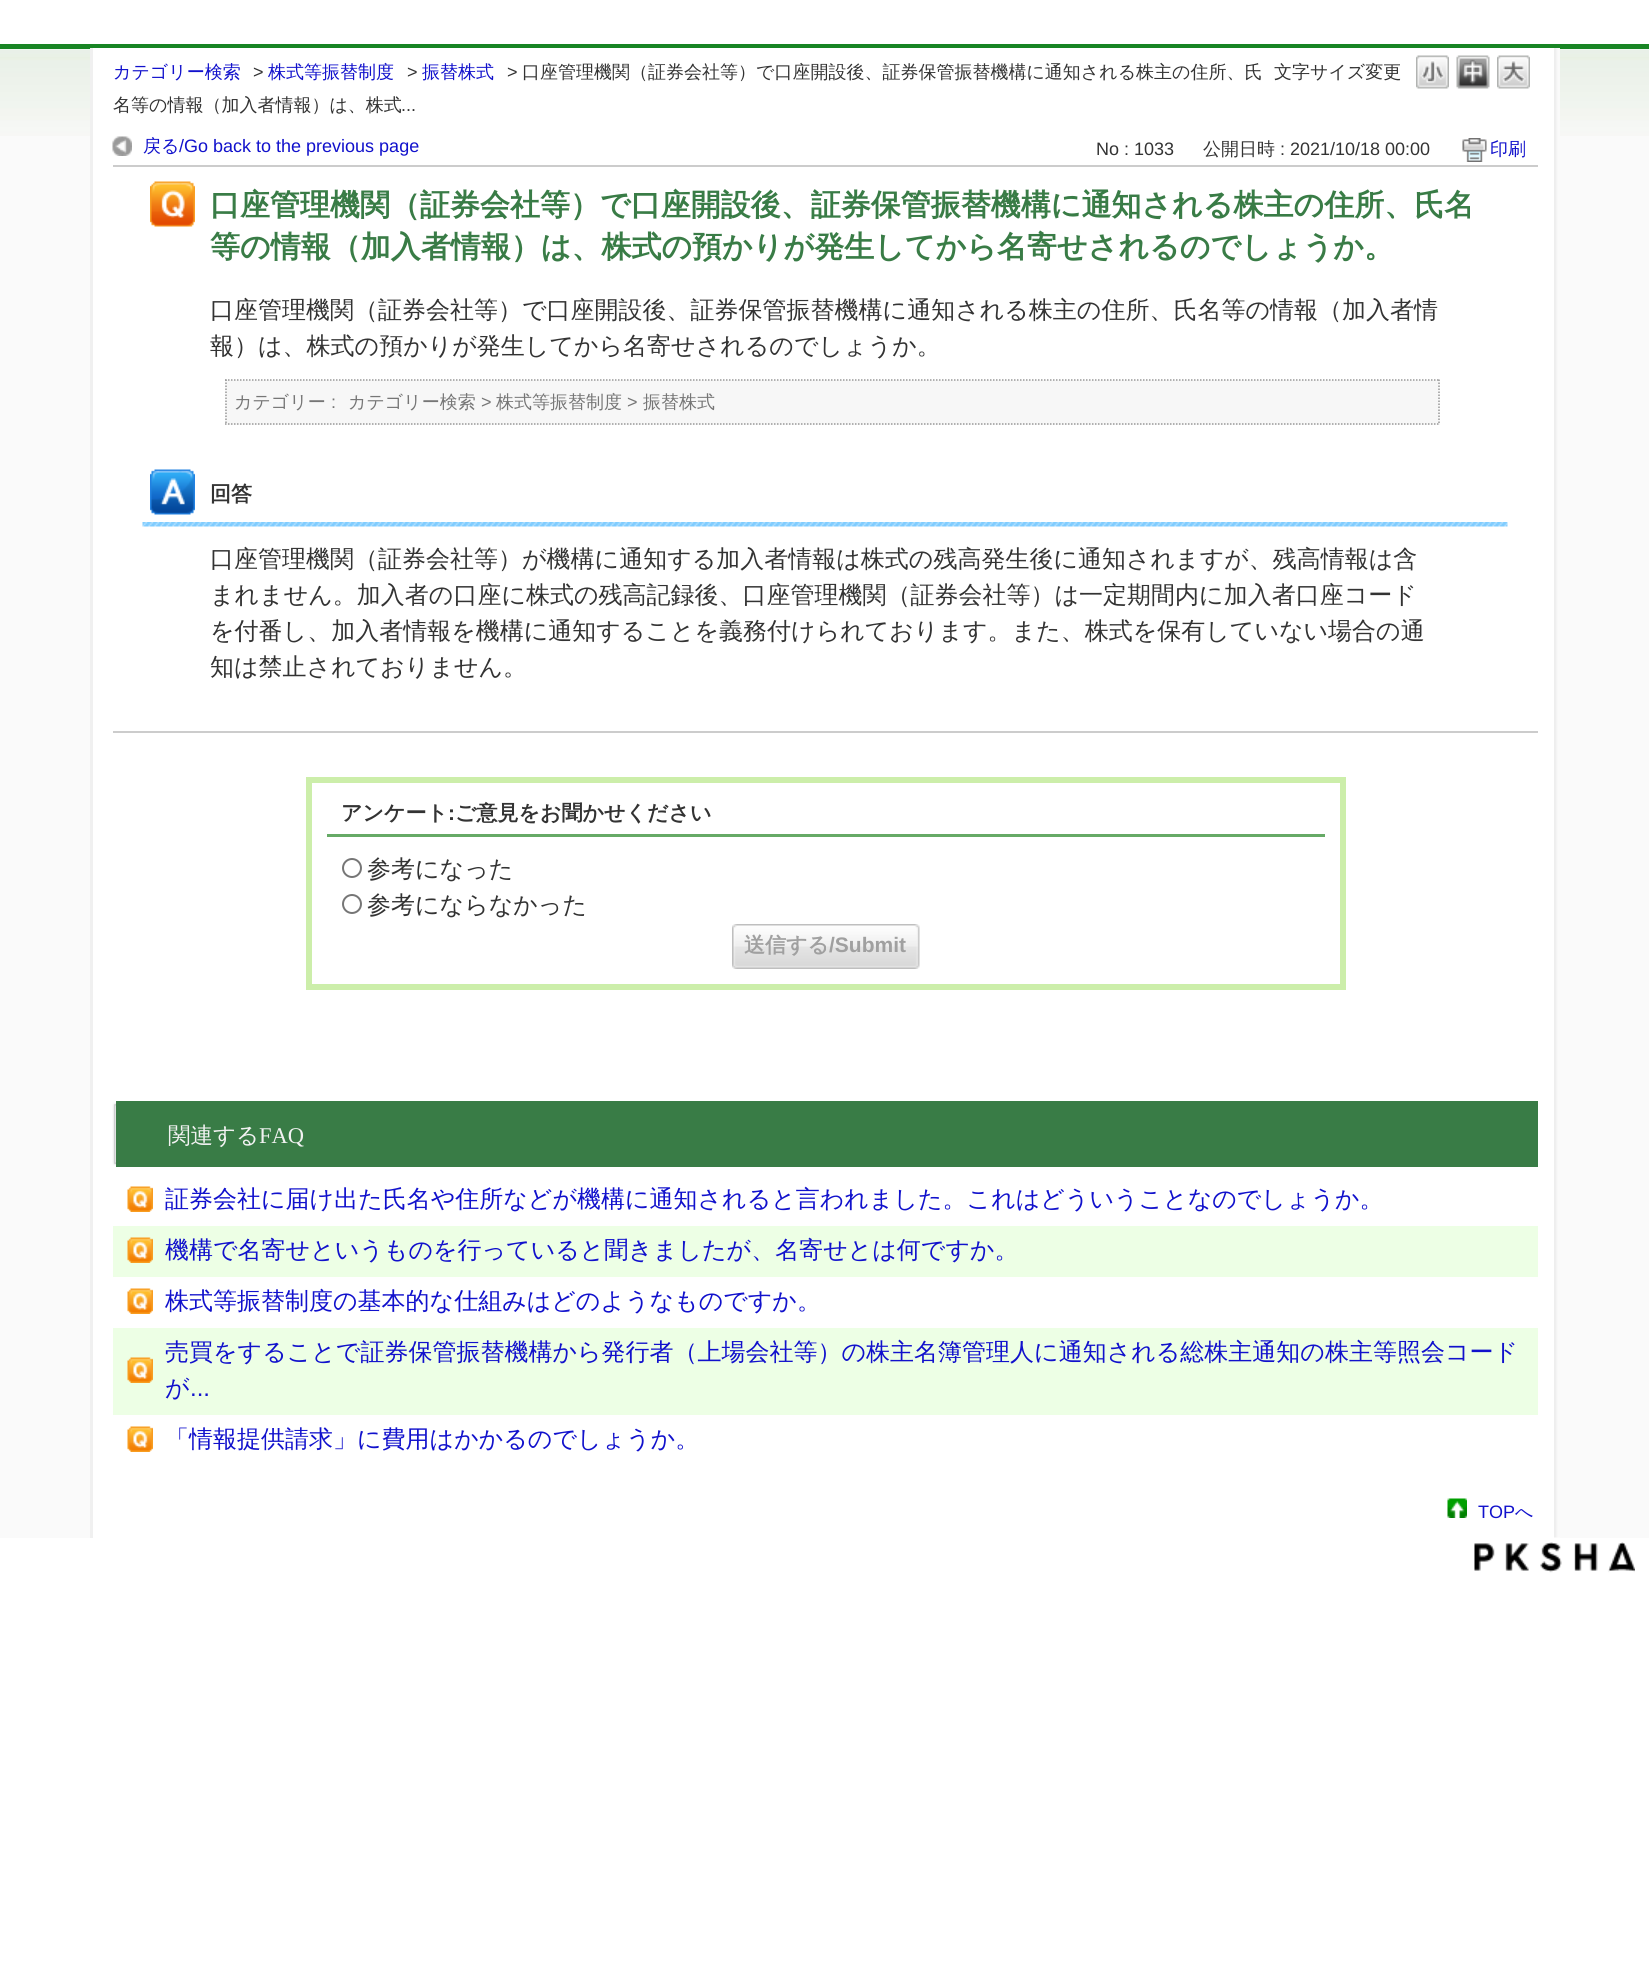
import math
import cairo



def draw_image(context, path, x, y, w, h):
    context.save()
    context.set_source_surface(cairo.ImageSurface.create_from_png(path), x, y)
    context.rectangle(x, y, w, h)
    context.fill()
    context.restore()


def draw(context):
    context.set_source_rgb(1, 1, 1)
    context.paint()
    context.set_source_rgb(24 / 255, 133 / 255, 36 / 255)
    context.rectangle(0, 44, 1649, 5)
    context.fill()
    context.set_source_rgb(250 / 255, 250 / 255, 250 / 255)
    context.rectangle(0, 136, 1649, 1402)
    context.fill()
    draw_image(context, "images/1.png", 0, 49, 1649, 87)
    context.set_source_rgb(1, 1, 1)
    context.rectangle(93, 48, 1467, 1490)
    context.fill()
    draw_image(context, "images/2.png", 1554, 48, 6, 1490)
    context.set_source_rgb(240 / 255, 240 / 255, 240 / 255)
    context.rectangle(90, 48, 3, 1490)
    context.fill()
    draw_image(context, "images/3.png", 1416, 55, 33, 34)
    draw_image(context, "images/4.png", 1456, 55, 34, 34)
    draw_image(context, "images/5.png", 1497, 55, 33, 34)
    context.set_source_rgb(204 / 255, 204 / 255, 204 / 255)
    context.rectangle(113, 165, 1425, 2)
    context.fill()
    draw_image(context, "images/6.png", 112, 136, 20, 20)
    draw_image(context, "images/7.png", 1462, 138, 25, 24)
    draw_image(context, "images/8.png", 150, 181, 45, 46)
    context.set_source_rgb(247 / 255, 247 / 255, 247 / 255)
    context.rectangle(225, 380, 1215, 45)
    context.fill()
    context.new_path()
    context.move_to(225, 380)
    context.line_to(1440, 380)
    context.set_source_rgb(153 / 255, 153 / 255, 153 / 255)
    context.set_line_width(1.5)
    context.set_dash([1.5, 1.5])
    context.stroke()
    context.new_path()
    context.move_to(1439, 379.5)
    context.line_to(1439, 424.5)
    context.stroke()
    context.new_path()
    context.move_to(225, 424)
    context.line_to(1440, 424)
    context.stroke()
    context.new_path()
    context.move_to(226, 379.5)
    context.line_to(226, 424.5)
    context.stroke()
    draw_image(context, "images/9.png", 142, 522, 1366, 5)
    draw_image(context, "images/10.png", 150, 469, 45, 46)
    context.set_source_rgb(204 / 255, 204 / 255, 204 / 255)
    context.rectangle(113, 731, 1425, 2)
    context.fill()
    context.rectangle(309, 780, 1034, 207)
    context.set_source_rgb(204 / 255, 238 / 255, 170 / 255)
    context.set_line_width(6)
    context.set_dash([])
    context.stroke()
    context.set_source_rgb(102 / 255, 170 / 255, 102 / 255)
    context.rectangle(327, 834, 998, 3)
    context.fill()
    context.arc(352, 868, 9, 0, 2 * math.pi)
    context.set_source_rgb(118 / 255, 118 / 255, 118 / 255)
    context.set_line_width(2)
    context.stroke()
    context.arc(352, 904, 9, 0, 2 * math.pi)
    context.stroke()
    draw_image(context, "images/11.png", 732, 924, 188, 45)
    draw_image(context, "images/12.png", 112, 1102, 4, 64)
    context.set_source_rgb(57 / 255, 124 / 255, 70 / 255)
    context.rectangle(116, 1101, 1422, 66)
    context.fill()
    draw_image(context, "images/13.png", 127, 1186, 26, 26)
    context.set_source_rgb(237 / 255, 1, 229 / 255)
    context.rectangle(113, 1226, 1425, 51)
    context.fill()
    draw_image(context, "images/14.png", 127, 1237, 26, 26)
    draw_image(context, "images/13.png", 127, 1288, 26, 26)
    context.rectangle(113, 1328, 1425, 87)
    context.fill()
    draw_image(context, "images/14.png", 127, 1357, 26, 26)
    draw_image(context, "images/13.png", 127, 1426, 26, 26)
    draw_image(context, "images/15.png", 1447, 1498, 20, 20)
    draw_image(context, "images/16.png", 1474, 1542, 161, 31)
    context.select_font_face("WenQuanYi Zen Hei Medium")
    context.set_font_size(18)
    context.set_source_rgb(17 / 255, 17 / 255, 204 / 255)
    context.move_to(113, 78)
    context.show_text("カテゴリー検索")
    context.select_font_face("Liberation Sans")
    context.set_source_rgb(51 / 255, 51 / 255, 51 / 255)
    context.move_to(253, 78)
    context.show_text(">")
    context.select_font_face("WenQuanYi Zen Hei Medium")
    context.set_source_rgb(17 / 255, 17 / 255, 204 / 255)
    context.move_to(268, 78)
    context.show_text("株式等振替制度")
    context.select_font_face("Liberation Sans")
    context.set_source_rgb(51 / 255, 51 / 255, 51 / 255)
    context.move_to(407, 78)
    context.show_text(">")
    context.select_font_face("WenQuanYi Zen Hei Medium")
    context.set_source_rgb(17 / 255, 17 / 255, 204 / 255)
    context.move_to(422, 78)
    context.show_text("振替株式")
    context.select_font_face("Liberation Sans")
    context.set_source_rgb(51 / 255, 51 / 255, 51 / 255)
    context.move_to(507, 78)
    context.show_text(">")
    context.select_font_face("WenQuanYi Zen Hei Medium")
    context.move_to(522, 78)
    context.show_text("口座管理機関（証券会社等）で口座開設後、証券保管振替機構に通知される株主の住所、氏")
    context.move_to(113, 111)
    context.show_text("名等の情報（加入者情報）は、株式")
    context.select_font_face("Liberation Sans")
    context.move_to(401, 111)
    context.show_text("...")
    context.select_font_face("WenQuanYi Zen Hei Medium")
    context.move_to(1274, 78)
    context.show_text("文字サイズ変更")
    context.set_source_rgb(17 / 255, 17 / 255, 204 / 255)
    context.move_to(143, 152)
    context.show_text("戻る")
    context.select_font_face("Liberation Sans")
    context.move_to(179, 152)
    context.show_text("/Go back to the previous page")
    context.set_source_rgb(51 / 255, 51 / 255, 51 / 255)
    context.move_to(1096, 155)
    context.show_text("No : 1033")
    context.select_font_face("WenQuanYi Zen Hei Medium")
    context.move_to(1203, 155)
    context.show_text("公開日時")
    context.select_font_face("Liberation Sans")
    context.move_to(1280, 155)
    context.show_text(": 2021/10/18 00:00")
    context.select_font_face("WenQuanYi Zen Hei Medium")
    context.set_source_rgb(17 / 255, 17 / 255, 204 / 255)
    context.move_to(1490, 155)
    context.show_text("印刷")
    context.select_font_face("WenQuanYi Zen Hei", cairo.FontSlant.NORMAL, cairo.FontWeight.BOLD)
    context.set_font_size(30)
    context.set_source_rgb(57 / 255, 124 / 255, 70 / 255)
    context.move_to(210, 215)
    context.show_text("口座管理機関（証券会社等）で口座開設後、証券保管振替機構に通知される株主の住所、氏名")
    context.move_to(210, 257)
    context.show_text("等の情報（加入者情報）は、株式の預かりが発生してから名寄せされるのでしょうか。")
    context.select_font_face("WenQuanYi Zen Hei Medium")
    context.set_font_size(24)
    context.set_source_rgb(51 / 255, 51 / 255, 51 / 255)
    context.move_to(210, 318)
    context.show_text("口座管理機関（証券会社等）で口座開設後、証券保管振替機構に通知される株主の住所、氏名等の情報（加入者情")
    context.move_to(210, 354)
    context.show_text("報）は、株式の預かりが発生してから名寄せされるのでしょうか。")
    context.set_font_size(18)
    context.set_source_rgb(118 / 255, 118 / 255, 118 / 255)
    context.move_to(234, 408)
    context.show_text("カテゴリー")
    context.select_font_face("Liberation Sans")
    context.move_to(331, 408)
    context.show_text(":")
    context.select_font_face("WenQuanYi Zen Hei Medium")
    context.move_to(348, 408)
    context.show_text("カテゴリー検索")
    context.select_font_face("Liberation Sans")
    context.move_to(481, 408)
    context.show_text(">")
    context.select_font_face("WenQuanYi Zen Hei Medium")
    context.move_to(496, 408)
    context.show_text("株式等振替制度")
    context.select_font_face("Liberation Sans")
    context.move_to(627, 408)
    context.show_text(">")
    context.select_font_face("WenQuanYi Zen Hei Medium")
    context.move_to(643, 408)
    context.show_text("振替株式")
    context.select_font_face("WenQuanYi Zen Hei", cairo.FontSlant.NORMAL, cairo.FontWeight.BOLD)
    context.set_font_size(21)
    context.set_source_rgb(51 / 255, 51 / 255, 51 / 255)
    context.move_to(210, 501)
    context.show_text("回答")
    context.select_font_face("WenQuanYi Zen Hei Medium")
    context.set_font_size(24)
    context.move_to(210, 567)
    context.show_text("口座管理機関（証券会社等）が機構に通知する加入者情報は株式の残高発生後に通知されますが、残高情報は含")
    context.move_to(210, 603)
    context.show_text("まれません。加入者の口座に株式の残高記録後、口座管理機関（証券会社等）は一定期間内に加入者口座コード")
    context.move_to(210, 639)
    context.show_text("を付番し、加入者情報を機構に通知することを義務付けられております。また、株式を保有していない場合の通")
    context.move_to(210, 675)
    context.show_text("知は禁止されておりません。")
    context.select_font_face("WenQuanYi Zen Hei", cairo.FontSlant.NORMAL, cairo.FontWeight.BOLD)
    context.set_font_size(21)
    context.move_to(341, 820)
    context.show_text("アンケート")
    context.select_font_face("Liberation Sans", cairo.FontSlant.NORMAL, cairo.FontWeight.BOLD)
    context.move_to(448, 820)
    context.show_text(":")
    context.select_font_face("WenQuanYi Zen Hei", cairo.FontSlant.NORMAL, cairo.FontWeight.BOLD)
    context.move_to(455, 820)
    context.show_text("ご意見をお聞かせください")
    context.select_font_face("WenQuanYi Zen Hei Medium")
    context.set_font_size(24)
    context.move_to(367, 877)
    context.show_text("参考になった")
    context.move_to(367, 913)
    context.show_text("参考にならなかった")
    context.select_font_face("WenQuanYi Zen Hei", cairo.FontSlant.NORMAL, cairo.FontWeight.BOLD)
    context.set_font_size(21)
    context.set_source_rgb(160 / 255, 160 / 255, 160 / 255)
    context.move_to(744, 952)
    context.show_text("送信する")
    context.select_font_face("Liberation Sans", cairo.FontSlant.NORMAL, cairo.FontWeight.BOLD)
    context.move_to(829, 952)
    context.show_text("/Submit")
    context.select_font_face("WenQuanYi Zen Hei Medium")
    context.set_font_size(22.5)
    context.set_source_rgb(242 / 255, 242 / 255, 242 / 255)
    context.move_to(168, 1143)
    context.show_text("関連する")
    context.select_font_face("Liberation Serif")
    context.move_to(259, 1143)
    context.show_text("FAQ")
    context.select_font_face("WenQuanYi Zen Hei Medium")
    context.set_font_size(24)
    context.set_source_rgb(17 / 255, 17 / 255, 204 / 255)
    context.move_to(165, 1207)
    context.show_text("証券会社に届け出た氏名や住所などが機構に通知されると言われました。これはどういうことなのでしょうか。")
    context.move_to(165, 1258)
    context.show_text("機構で名寄せというものを行っていると聞きましたが、名寄せとは何ですか。")
    context.move_to(165, 1309)
    context.show_text("株式等振替制度の基本的な仕組みはどのようなものですか。")
    context.move_to(165, 1360)
    context.show_text("売買をすることで証券保管振替機構から発行者（上場会社等）の株主名簿管理人に通知される総株主通知の株主等照会コード")
    context.move_to(165, 1396)
    context.show_text("が")
    context.select_font_face("Liberation Sans")
    context.move_to(190, 1396)
    context.show_text("...")
    context.select_font_face("WenQuanYi Zen Hei Medium")
    context.move_to(165, 1447)
    context.show_text("「情報提供請求」に費用はかかるのでしょうか。")
    context.select_font_face("Liberation Sans")
    context.set_font_size(18)
    context.move_to(1478, 1518)
    context.show_text("TOP")
    context.select_font_face("WenQuanYi Zen Hei Medium")
    context.move_to(1515, 1518)
    context.show_text("へ")


surface = cairo.ImageSurface(cairo.Format.RGB24, 1649, 1971)
context = cairo.Context(surface)
options = cairo.FontOptions()
options.set_hint_metrics(cairo.HintMetrics.OFF)
options.set_hint_style(cairo.HintStyle.NONE)
context.set_font_options(options)
context.set_miter_limit(4)
draw(context)
surface.write_to_png("out.png")
